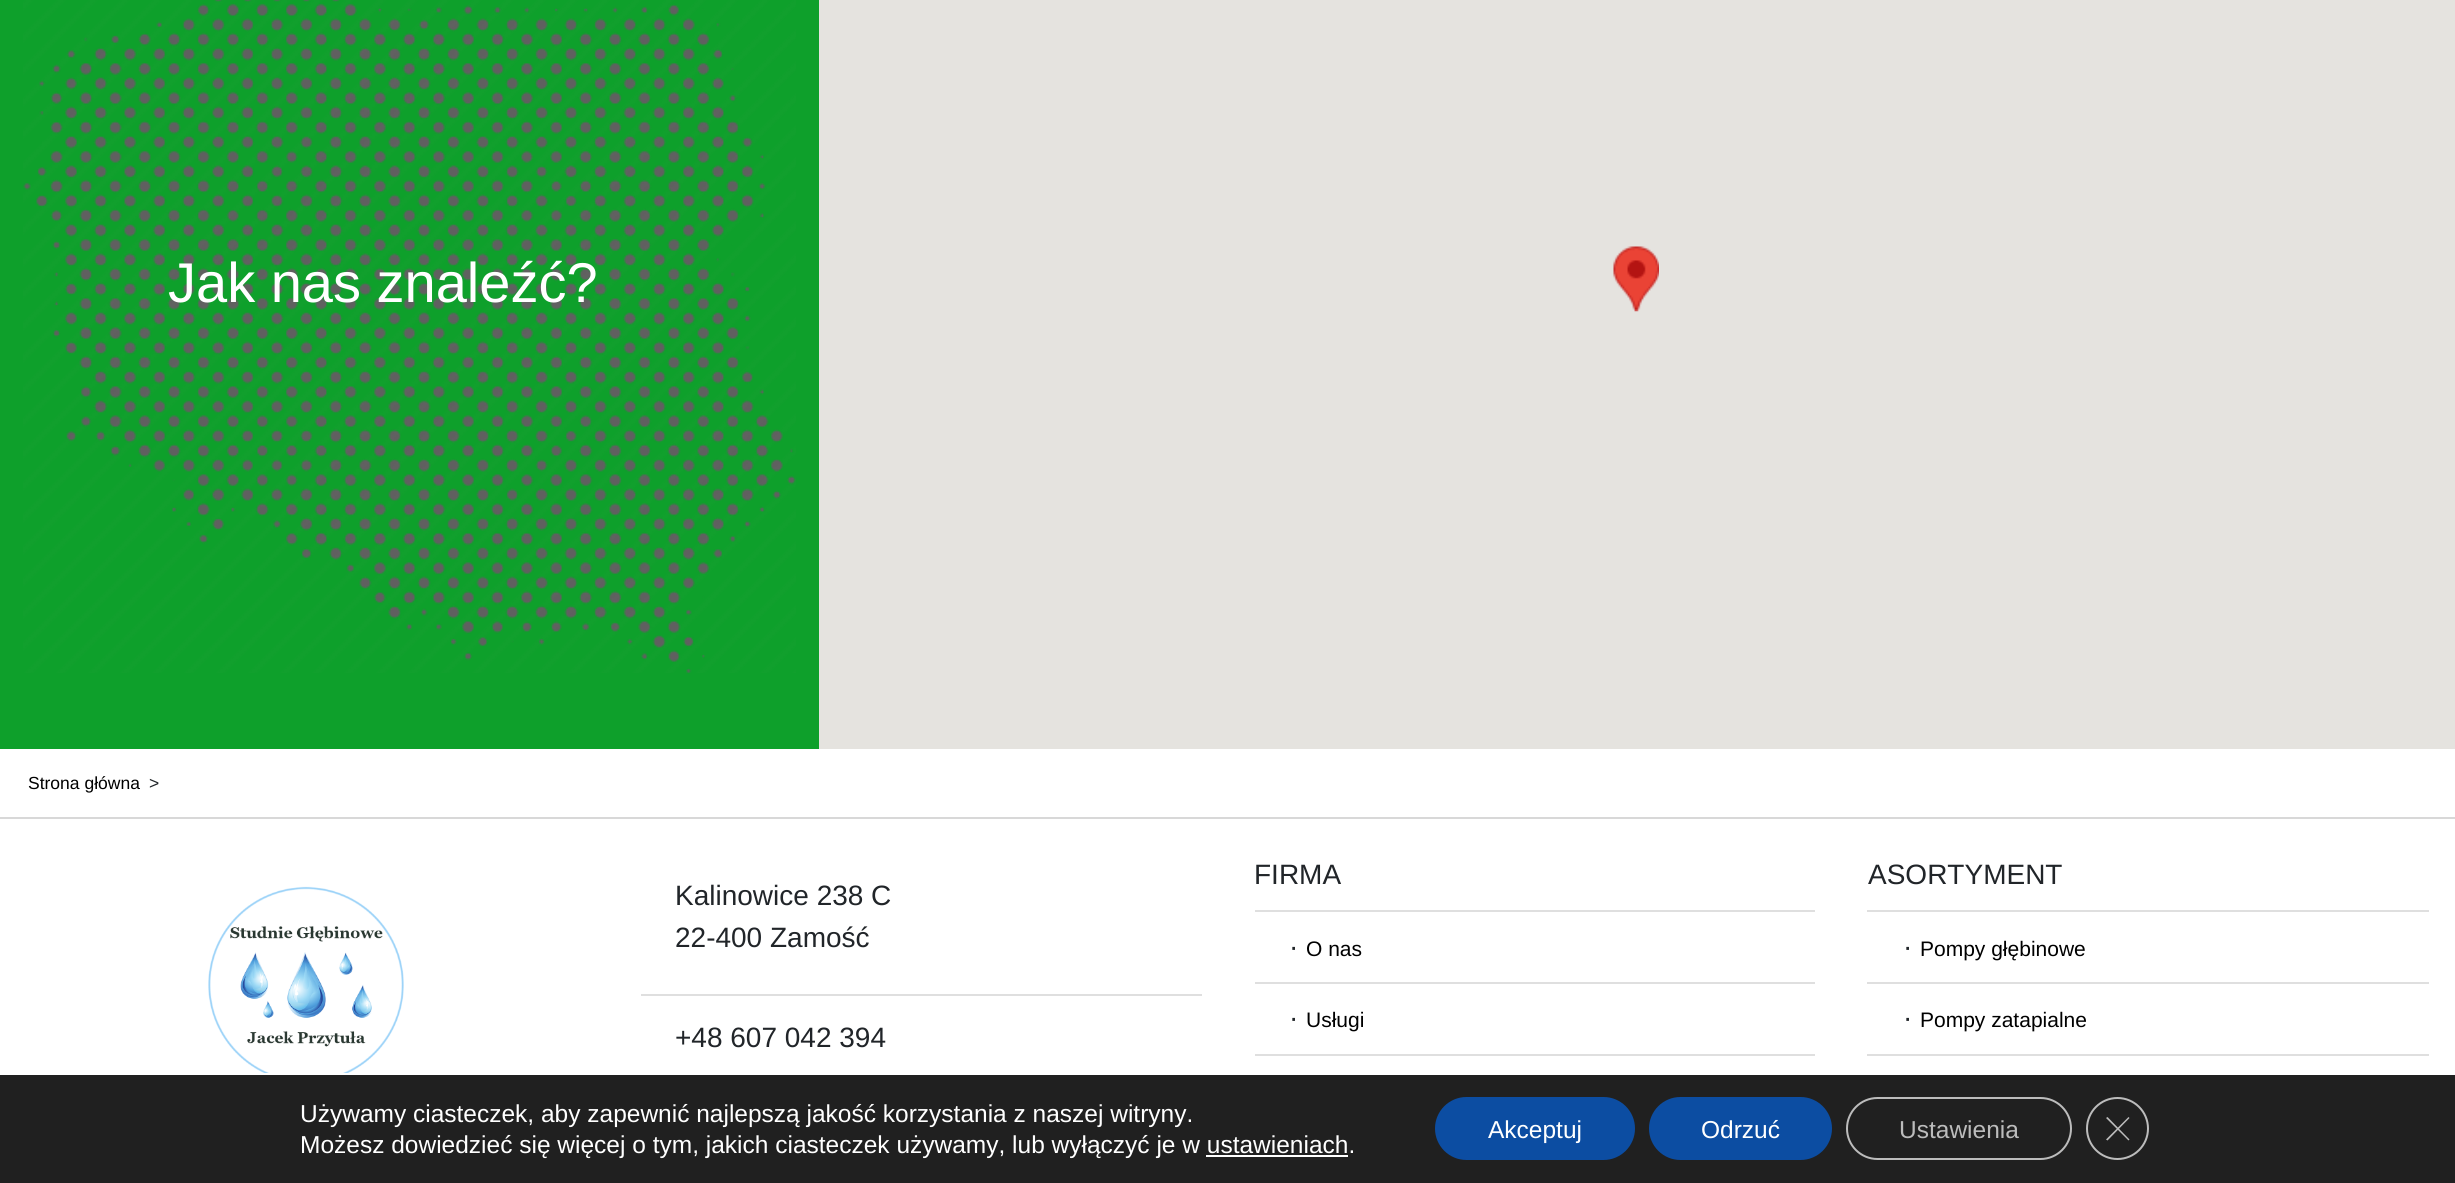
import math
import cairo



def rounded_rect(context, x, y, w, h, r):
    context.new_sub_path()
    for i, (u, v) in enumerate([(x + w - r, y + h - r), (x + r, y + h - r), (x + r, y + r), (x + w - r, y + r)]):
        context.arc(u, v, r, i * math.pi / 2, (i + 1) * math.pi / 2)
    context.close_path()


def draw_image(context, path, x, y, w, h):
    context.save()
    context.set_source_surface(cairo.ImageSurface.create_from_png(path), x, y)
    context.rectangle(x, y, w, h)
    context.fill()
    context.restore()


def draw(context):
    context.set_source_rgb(1, 1, 1)
    context.paint()
    context.set_source_rgb(14 / 255, 160 / 255, 43 / 255)
    context.rectangle(0, 0, 819, 749)
    context.fill()
    draw_image(context, "images/1.png", 23, 0, 773, 673)
    context.set_source_rgb(229 / 255, 227 / 255, 223 / 255)
    context.rectangle(819, 0, 1636, 749)
    context.fill()
    draw_image(context, "images/2.png", 1613, 246, 46, 66)
    context.set_source_rgb(216 / 255, 216 / 255, 216 / 255)
    context.rectangle(0, 817, 2455, 2)
    context.fill()
    draw_image(context, "images/3.png", 208, 886, 196, 187)
    context.set_source_rgb(223 / 255, 223 / 255, 223 / 255)
    context.rectangle(641, 994, 561, 2)
    context.fill()
    context.rectangle(1255, 910, 560, 2)
    context.fill()
    context.rectangle(1255, 982, 560, 2)
    context.fill()
    context.rectangle(1255, 1054, 560, 2)
    context.fill()
    context.rectangle(1867, 910, 562, 2)
    context.fill()
    context.rectangle(1867, 982, 562, 2)
    context.fill()
    context.rectangle(1867, 1054, 562, 2)
    context.fill()
    context.set_source_rgb(32 / 255, 32 / 255, 32 / 255)
    context.rectangle(0, 1075, 2455, 108)
    context.fill()
    context.set_source_rgb(1, 1, 1)
    context.rectangle(1206, 1155, 142, 2)
    context.fill()
    context.set_source_rgb(12 / 255, 77 / 255, 162 / 255)
    rounded_rect(context, 1435, 1097, 200, 63, 31.5)
    context.fill()
    rounded_rect(context, 1649, 1097, 183, 63, 31.5)
    context.fill()
    rounded_rect(context, 1847, 1098, 224, 61, 30.5)
    context.set_source_rgb(188 / 255, 188 / 255, 188 / 255)
    context.stroke()
    context.arc(2117.5, 1128.5, 30.5, 0, 2 * math.pi)
    context.stroke()
    context.new_path()
    context.move_to(2128.5, 1117)
    context.line_to(2129.5, 1118)
    context.line_to(2107.5, 1140.5)
    context.line_to(2106, 1139.5)
    context.close_path()
    context.fill()
    context.new_path()
    context.move_to(2106, 1118)
    context.line_to(2107.5, 1117)
    context.line_to(2129.5, 1139.5)
    context.line_to(2128.5, 1140.5)
    context.close_path()
    context.fill()
    context.select_font_face("Liberation Sans")
    context.set_font_size(56)
    context.set_source_rgb(1, 1, 1)
    context.move_to(168, 302)
    context.show_text("Jak nas znaleźć?")
    context.set_font_size(17.5)
    context.set_source_rgb(0, 0, 0)
    context.move_to(28, 789)
    context.show_text("Strona główna")
    context.set_source_rgb(33 / 255, 37 / 255, 41 / 255)
    context.move_to(149, 789)
    context.show_text(">")
    context.set_font_size(28)
    context.move_to(675, 905)
    context.show_text("Kalinowice 238 C")
    context.move_to(675, 947)
    context.show_text("22-400 Zamość")
    context.move_to(675, 1047)
    context.show_text("+48 607 042 394")
    context.move_to(1254, 884)
    context.show_text("FIRMA")
    context.move_to(1289, 956)
    context.show_text("·")
    context.set_font_size(21)
    context.set_source_rgb(0, 0, 0)
    context.move_to(1306, 956)
    context.show_text("O nas")
    context.set_font_size(28)
    context.set_source_rgb(33 / 255, 37 / 255, 41 / 255)
    context.move_to(1289, 1027)
    context.show_text("·")
    context.set_font_size(21)
    context.set_source_rgb(0, 0, 0)
    context.move_to(1306, 1027)
    context.show_text("Usługi")
    context.set_font_size(28)
    context.set_source_rgb(33 / 255, 37 / 255, 41 / 255)
    context.move_to(1868, 884)
    context.show_text("ASORTYMENT")
    context.move_to(1903, 956)
    context.show_text("·")
    context.set_font_size(21)
    context.set_source_rgb(0, 0, 0)
    context.move_to(1920, 956)
    context.show_text("Pompy głębinowe")
    context.set_font_size(28)
    context.set_source_rgb(33 / 255, 37 / 255, 41 / 255)
    context.move_to(1903, 1027)
    context.show_text("·")
    context.set_font_size(21)
    context.set_source_rgb(0, 0, 0)
    context.move_to(1920, 1027)
    context.show_text("Pompy zatapialne")
    context.set_font_size(24.5)
    context.set_source_rgb(1, 1, 1)
    context.move_to(300, 1122)
    context.show_text("Używamy ciasteczek, aby zapewnić najlepszą jakość korzystania z naszej witryny.")
    context.move_to(300, 1153)
    context.show_text("Możesz dowiedzieć się więcej o tym, jakich ciasteczek używamy, lub wyłączyć je w ustawieniach.")
    context.move_to(1488, 1138)
    context.show_text("Akceptuj")
    context.move_to(1701, 1138)
    context.show_text("Odrzuć")
    context.set_source_rgb(188 / 255, 188 / 255, 188 / 255)
    context.move_to(1899, 1138)
    context.show_text("Ustawienia")


surface = cairo.ImageSurface(cairo.Format.RGB24, 2455, 1183)
context = cairo.Context(surface)
options = cairo.FontOptions()
options.set_hint_metrics(cairo.HintMetrics.OFF)
options.set_hint_style(cairo.HintStyle.NONE)
context.set_font_options(options)
context.set_miter_limit(4)
draw(context)
surface.write_to_png("out.png")
